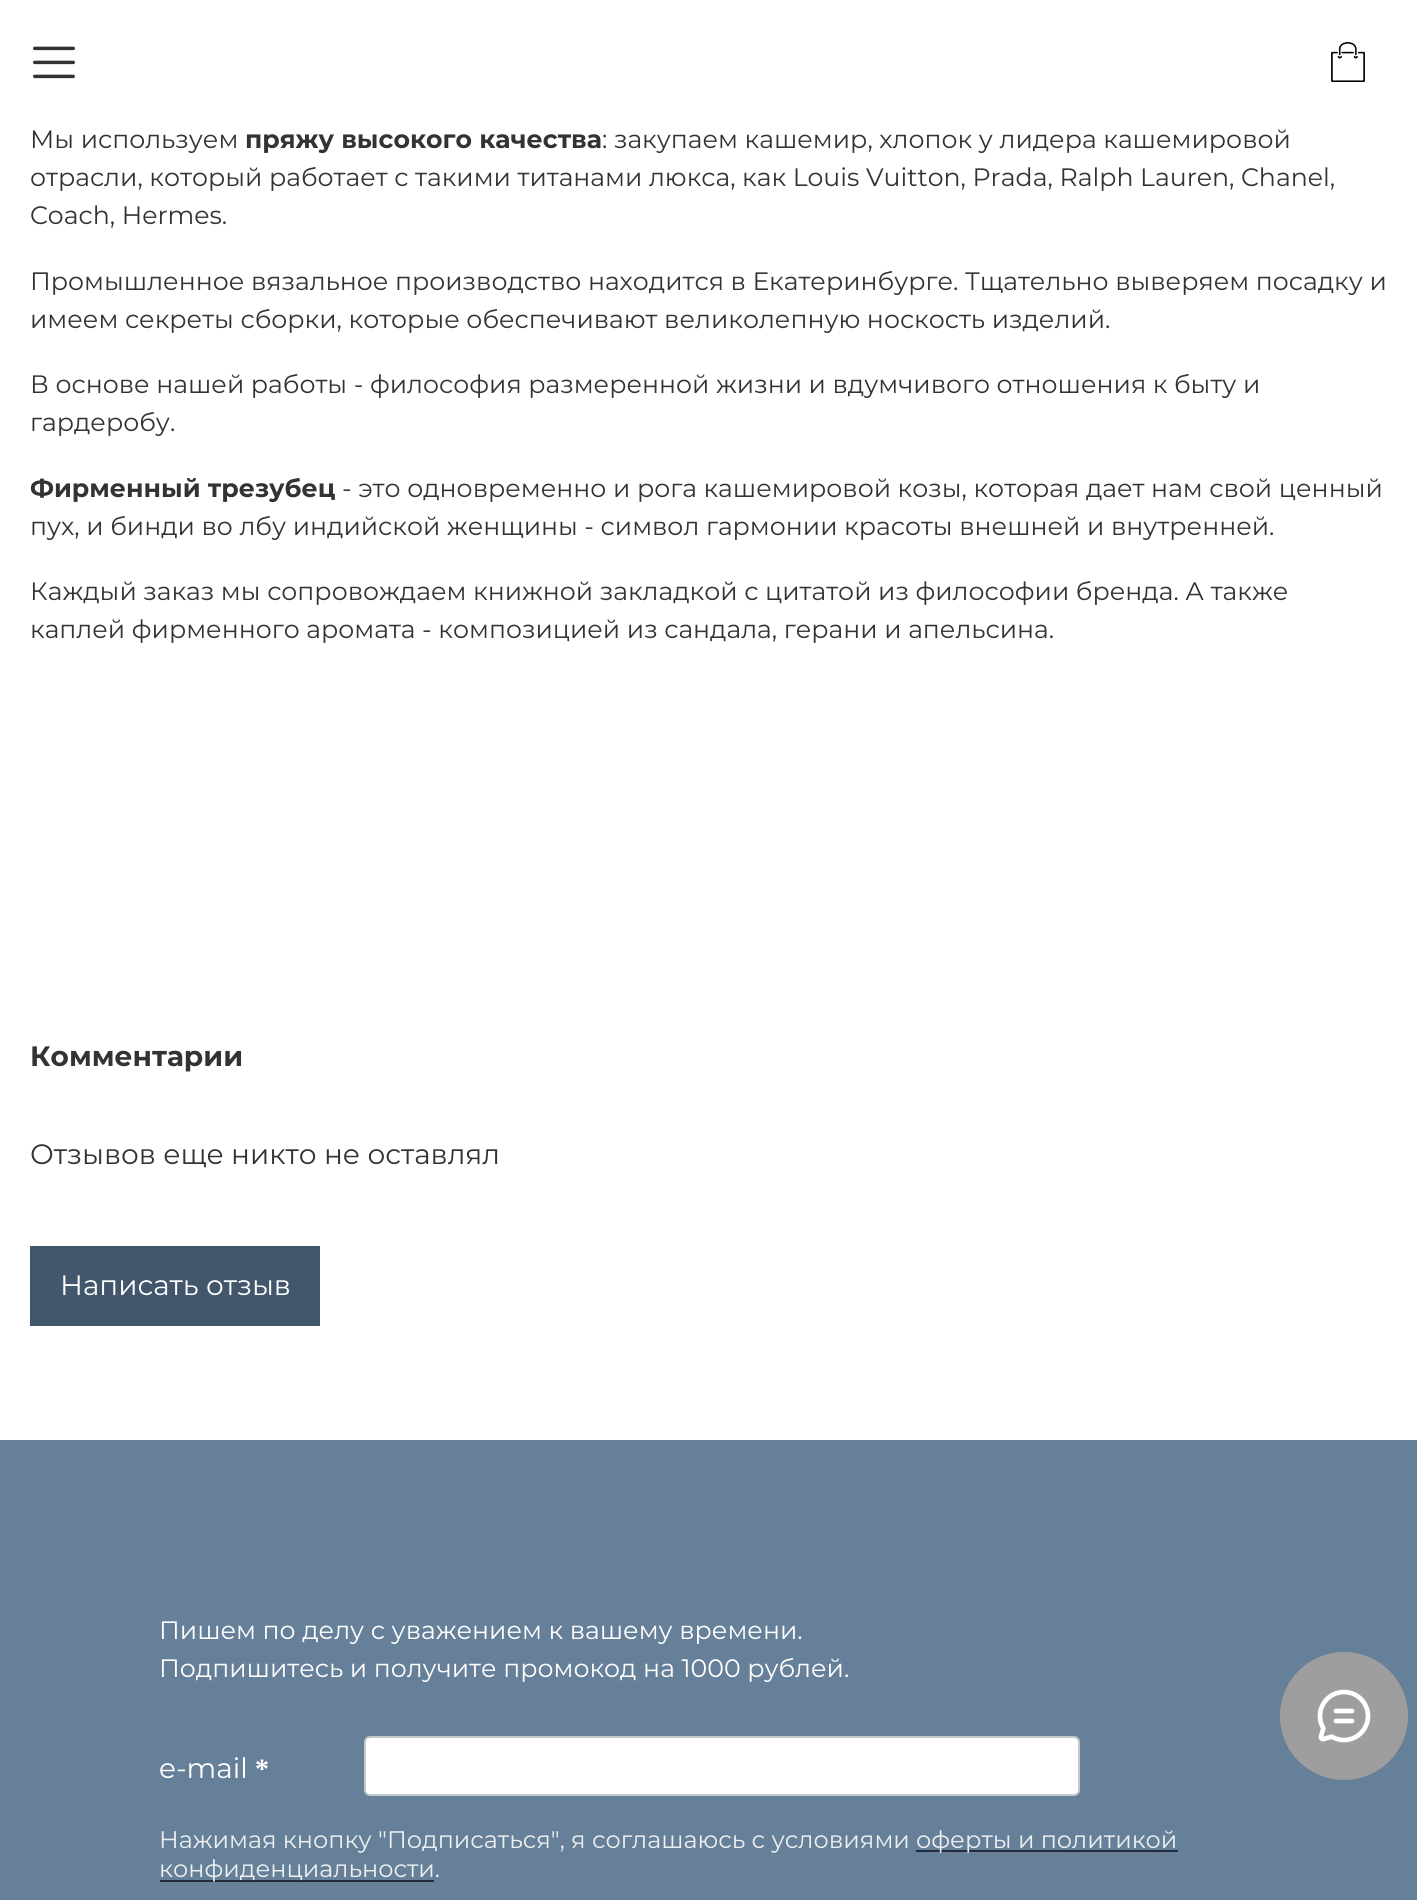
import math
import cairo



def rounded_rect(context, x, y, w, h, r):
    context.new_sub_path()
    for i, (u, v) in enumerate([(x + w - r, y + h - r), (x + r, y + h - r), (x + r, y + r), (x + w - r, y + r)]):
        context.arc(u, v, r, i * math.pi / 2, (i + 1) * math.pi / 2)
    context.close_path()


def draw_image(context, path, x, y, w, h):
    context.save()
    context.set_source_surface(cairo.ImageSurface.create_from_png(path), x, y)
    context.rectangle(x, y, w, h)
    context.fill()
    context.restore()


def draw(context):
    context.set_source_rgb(1, 1, 1)
    context.paint()
    draw_image(context, "images/1.png", 33, 46, 42, 33)
    draw_image(context, "images/2.png", 1331, 42, 34, 40)
    context.set_source_rgb(66 / 255, 87 / 255, 107 / 255)
    context.rectangle(30, 1246, 290, 80)
    context.fill()
    context.set_source_rgb(103 / 255, 128 / 255, 153 / 255)
    context.rectangle(0, 1440, 1417, 460)
    context.fill()
    context.set_source_rgb(1, 1, 1)
    rounded_rect(context, 365, 1737, 714, 58, 5)
    context.fill_preserve()
    context.set_source_rgb(193 / 255, 201 / 255, 203 / 255)
    context.stroke()
    context.set_source_rgb(32 / 255, 43 / 255, 59 / 255)
    context.rectangle(916, 1850, 262, 2)
    context.fill()
    context.rectangle(160, 1880, 274, 2)
    context.fill()
    context.set_source_rgb(158 / 255, 158 / 255, 158 / 255)
    context.arc(1344, 1716, 64, 0, 2 * math.pi)
    context.fill()
    draw_image(context, "images/3.png", 1317, 1689, 54, 54)
    context.select_font_face("Montserrat")
    context.set_font_size(25.2)
    context.set_source_rgb(51 / 255, 51 / 255, 51 / 255)
    context.move_to(30, 148)
    context.show_text("Мы используем")
    context.select_font_face("Montserrat", cairo.FontSlant.NORMAL, cairo.FontWeight.BOLD)
    context.move_to(245, 148)
    context.show_text("пряжу высокого качества")
    context.select_font_face("Montserrat")
    context.move_to(602, 148)
    context.show_text(": закупаем кашемир, хлопок у лидера кашемировой")
    context.move_to(30, 186)
    context.show_text("отрасли, который работает с такими титанами люкса, как Louis Vuitton, Prada, Ralph Lauren, Chanel,")
    context.move_to(30, 224)
    context.show_text("Coach, Hermes.")
    context.move_to(30, 290)
    context.show_text("Промышленное вязальное производство находится в Екатеринбурге. Тщательно выверяем посадку и")
    context.move_to(30, 328)
    context.show_text("имеем секреты сборки, которые обеспечивают великолепную носкость изделий.")
    context.move_to(30, 393)
    context.show_text("В основе нашей работы - философия размеренной жизни и вдумчивого отношения к быту и")
    context.move_to(30, 431)
    context.show_text("гардеробу.")
    context.select_font_face("Montserrat", cairo.FontSlant.NORMAL, cairo.FontWeight.BOLD)
    context.move_to(30, 497)
    context.show_text("Фирменный трезубец")
    context.select_font_face("Montserrat")
    context.move_to(342, 497)
    context.show_text("- это одновременно и рога кашемировой козы, которая дает нам свой ценный")
    context.move_to(30, 535)
    context.show_text("пух, и бинди во лбу индийской женщины - символ гармонии красоты внешней и внутренней.")
    context.move_to(30, 600)
    context.show_text("Каждый заказ мы сопровождаем книжной закладкой с цитатой из философии бренда. А также")
    context.move_to(30, 638)
    context.show_text("каплей фирменного аромата - композицией из сандала, герани и апельсина.")
    context.select_font_face("Montserrat", cairo.FontSlant.NORMAL, cairo.FontWeight.BOLD)
    context.set_font_size(28)
    context.move_to(30, 1066)
    context.show_text("Комментарии")
    context.select_font_face("Montserrat")
    context.move_to(30, 1164)
    context.show_text("Отзывов еще никто не оставлял")
    context.set_source_rgb(1, 1, 1)
    context.move_to(60, 1295)
    context.show_text("Написать отзыв")
    context.set_font_size(25.2)
    context.move_to(159, 1639)
    context.show_text("Пишем по делу с уважением к вашему времени.")
    context.move_to(159, 1677)
    context.show_text("Подпишитесь и получите промокод на 1000 рублей.")
    context.set_font_size(28)
    context.move_to(159, 1778)
    context.show_text("e-mail")
    context.select_font_face("Liberation Serif", cairo.FontSlant.NORMAL, cairo.FontWeight.BOLD)
    context.move_to(255, 1778)
    context.show_text("*")
    context.select_font_face("Montserrat")
    context.set_font_size(24)
    context.set_source_rgb(236 / 255, 240 / 255, 241 / 255)
    context.move_to(159, 1848)
    context.show_text("Нажимая кнопку \"Подписаться\", я соглашаюсь с условиями")
    context.move_to(916, 1848)
    context.show_text("оферты и политикой")
    context.move_to(159, 1877)
    context.show_text("конфиденциальности.")


surface = cairo.ImageSurface(cairo.Format.RGB24, 1417, 1900)
context = cairo.Context(surface)
options = cairo.FontOptions()
options.set_hint_metrics(cairo.HintMetrics.OFF)
options.set_hint_style(cairo.HintStyle.NONE)
context.set_font_options(options)
context.set_miter_limit(4)
draw(context)
surface.write_to_png("out.png")
